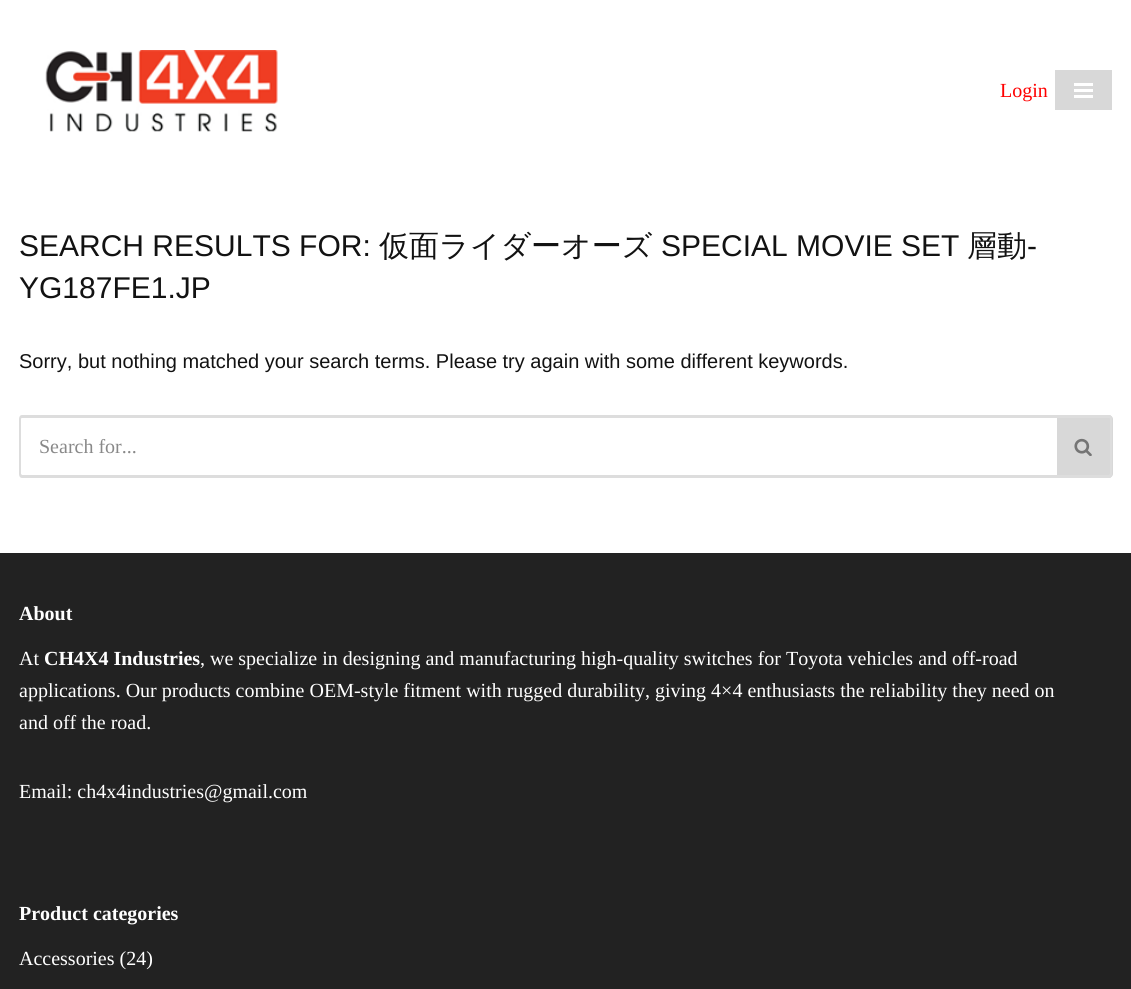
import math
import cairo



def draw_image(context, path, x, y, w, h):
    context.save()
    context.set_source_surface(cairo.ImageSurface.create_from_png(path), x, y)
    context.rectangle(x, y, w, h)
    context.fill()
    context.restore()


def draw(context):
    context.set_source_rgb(1, 1, 1)
    context.paint()
    draw_image(context, "images/1.png", 45, 50, 233, 82)
    context.set_source_rgb(216 / 255, 216 / 255, 216 / 255)
    context.rectangle(1055, 70, 57, 40)
    context.fill()
    context.set_source_rgb(1, 1, 1)
    context.rectangle(1074, 83, 19, 3)
    context.fill()
    context.rectangle(1074, 89, 19, 3)
    context.fill()
    context.rectangle(1074, 95, 19, 3)
    context.fill()
    context.set_source_rgb(221 / 255, 221 / 255, 221 / 255)
    context.set_fill_rule(cairo.FillRule.EVEN_ODD)
    context.new_path()
    context.move_to(22, 415)
    context.line_to(1056, 415)
    context.line_to(1056, 478)
    context.line_to(22, 478)
    context.curve_to(20, 478, 19, 476, 19, 474)
    context.line_to(19, 419)
    context.curve_to(19, 417, 20, 415, 22, 415)
    context.close_path()
    context.move_to(22, 418)
    context.line_to(1056, 418)
    context.line_to(1056, 475)
    context.line_to(22, 475)
    context.curve_to(22, 475, 21, 474, 21, 474)
    context.line_to(21, 419)
    context.curve_to(21, 418, 22, 418, 22, 418)
    context.close_path()
    context.fill()
    context.set_source_rgb(216 / 255, 216 / 255, 216 / 255)
    context.new_path()
    context.move_to(1056, 415)
    context.line_to(1109, 415)
    context.curve_to(1111, 415, 1113, 417, 1113, 419)
    context.line_to(1113, 474)
    context.curve_to(1113, 476, 1111, 478, 1109, 478)
    context.line_to(1056, 478)
    context.close_path()
    context.fill()
    context.set_source_rgb(221 / 255, 221 / 255, 221 / 255)
    context.new_path()
    context.move_to(1056, 415)
    context.line_to(1109, 415)
    context.curve_to(1111, 415, 1112, 417, 1112, 419)
    context.line_to(1112, 474)
    context.curve_to(1112, 476, 1111, 478, 1109, 478)
    context.line_to(1056, 478)
    context.close_path()
    context.move_to(1056, 418)
    context.line_to(1109, 418)
    context.curve_to(1109, 418, 1110, 418, 1110, 419)
    context.line_to(1110, 474)
    context.curve_to(1110, 474, 1109, 475, 1109, 475)
    context.line_to(1056, 475)
    context.close_path()
    context.fill()
    context.set_source_rgb(1, 1, 1)
    context.rectangle(1056, 418, 1, 57)
    context.fill()
    draw_image(context, "images/2.png", 1074, 438, 18, 18)
    context.set_source_rgb(34 / 255, 34 / 255, 34 / 255)
    context.rectangle(0, 553, 1131, 436)
    context.fill()
    context.select_font_face("Liberation Serif")
    context.set_font_size(20)
    context.set_source_rgb(1, 0, 0)
    context.move_to(1000, 97)
    context.show_text("Login")
    context.select_font_face("Liberation Sans")
    context.set_font_size(30)
    context.set_source_rgb(18 / 255, 18 / 255, 18 / 255)
    context.move_to(19, 256)
    context.show_text("SEARCH RESULTS FOR:")
    context.select_font_face("WenQuanYi Zen Hei Medium")
    context.move_to(379, 256)
    context.show_text("仮面ライダーオーズ")
    context.select_font_face("Liberation Sans")
    context.move_to(661, 256)
    context.show_text("SPECIAL MOVIE SET")
    context.select_font_face("WenQuanYi Zen Hei Medium")
    context.move_to(967, 256)
    context.show_text("層動")
    context.select_font_face("Liberation Sans")
    context.move_to(1027, 256)
    context.show_text("-")
    context.move_to(19, 298)
    context.show_text("YG187FE1.JP")
    context.set_font_size(20)
    context.move_to(19, 368)
    context.show_text("Sorry, but nothing matched your search terms. Please try again with some different keywords.")
    context.select_font_face("Liberation Serif")
    context.set_source_rgb(137 / 255, 137 / 255, 137 / 255)
    context.move_to(39, 453)
    context.show_text("Search for...")
    context.select_font_face("Liberation Serif", cairo.FontSlant.NORMAL, cairo.FontWeight.BOLD)
    context.set_source_rgb(1, 1, 1)
    context.move_to(19, 620)
    context.show_text("About")
    context.select_font_face("Liberation Serif")
    context.move_to(19, 665)
    context.show_text("At")
    context.select_font_face("Liberation Serif", cairo.FontSlant.NORMAL, cairo.FontWeight.BOLD)
    context.move_to(44, 665)
    context.show_text("CH4X4 Industries")
    context.select_font_face("Liberation Serif")
    context.move_to(200, 665)
    context.show_text(", we specialize in designing and manufacturing high-quality switches for Toyota vehicles and off-road")
    context.move_to(19, 697)
    context.show_text("applications. Our products combine OEM-style fitment with rugged durability, giving 4×4 enthusiasts the reliability they need on")
    context.move_to(19, 729)
    context.show_text("and off the road.")
    context.move_to(19, 798)
    context.show_text("Email: ch4x4industries@gmail.com")
    context.select_font_face("Liberation Serif", cairo.FontSlant.NORMAL, cairo.FontWeight.BOLD)
    context.move_to(19, 920)
    context.show_text("Product categories")
    context.select_font_face("Liberation Serif")
    context.move_to(19, 965)
    context.show_text("Accessories (24)")


surface = cairo.ImageSurface(cairo.Format.RGB24, 1131, 989)
context = cairo.Context(surface)
options = cairo.FontOptions()
options.set_hint_metrics(cairo.HintMetrics.OFF)
options.set_hint_style(cairo.HintStyle.NONE)
context.set_font_options(options)
context.set_miter_limit(4)
draw(context)
surface.write_to_png("out.png")
